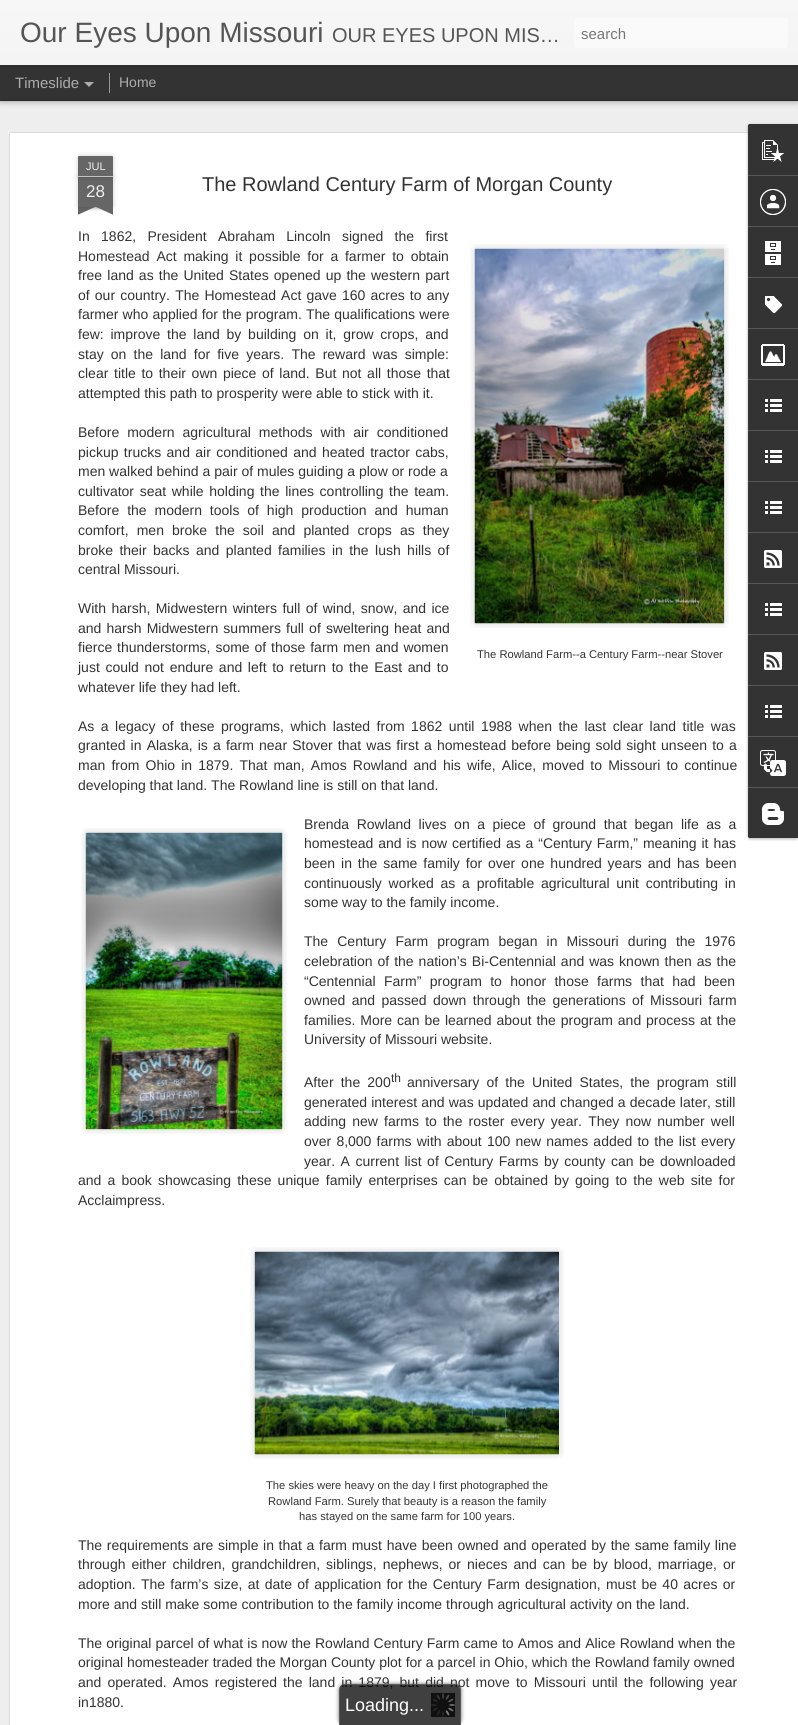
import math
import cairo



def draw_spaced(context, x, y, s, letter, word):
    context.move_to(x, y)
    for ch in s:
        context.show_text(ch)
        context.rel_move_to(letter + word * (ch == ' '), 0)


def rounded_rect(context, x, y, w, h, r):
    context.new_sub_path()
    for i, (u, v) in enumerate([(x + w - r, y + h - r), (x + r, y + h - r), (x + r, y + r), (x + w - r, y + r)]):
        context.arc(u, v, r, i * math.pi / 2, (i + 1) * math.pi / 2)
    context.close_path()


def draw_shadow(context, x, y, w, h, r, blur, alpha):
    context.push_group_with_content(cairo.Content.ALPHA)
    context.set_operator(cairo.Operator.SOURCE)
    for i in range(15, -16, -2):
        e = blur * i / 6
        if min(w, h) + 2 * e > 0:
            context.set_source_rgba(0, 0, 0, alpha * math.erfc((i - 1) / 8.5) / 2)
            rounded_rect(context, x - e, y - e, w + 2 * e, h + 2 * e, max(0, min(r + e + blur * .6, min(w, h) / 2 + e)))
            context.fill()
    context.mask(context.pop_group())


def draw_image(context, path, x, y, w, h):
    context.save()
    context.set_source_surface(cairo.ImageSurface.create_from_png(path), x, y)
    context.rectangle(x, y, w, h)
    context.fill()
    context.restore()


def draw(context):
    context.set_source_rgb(51 / 255, 51 / 255, 51 / 255)
    context.paint()
    context.set_source_rgb(238 / 255, 238 / 255, 238 / 255)
    context.rectangle(0, 101, 798, 1624)
    context.fill()
    context.set_source_rgb(0, 0, 0)
    draw_shadow(context, 0, 65, 798, 35, 0, 4, 0.5)
    context.set_source_rgb(51 / 255, 51 / 255, 51 / 255)
    context.rectangle(0, 65, 798, 35)
    context.fill()
    context.set_source_rgb(153 / 255, 153 / 255, 153 / 255)
    context.rectangle(109, 73, 1, 20)
    context.fill()
    context.set_source_rgb(0, 0, 0)
    draw_shadow(context, 0, 0, 798, 65, 0, 2.5, 0.3)
    gradient = cairo.LinearGradient(0, 0, 0, 65)
    gradient.add_color_stop_rgba(0, 247 / 255, 247 / 255, 247 / 255, 1)
    gradient.add_color_stop_rgba(1, 244 / 255, 244 / 255, 244 / 255, 1)
    context.set_source(gradient)
    context.rectangle(0, 0, 798, 65)
    context.fill()
    context.set_source_rgb(250 / 255, 250 / 255, 250 / 255)
    rounded_rect(context, 574, 18, 214, 30, 3)
    context.fill()
    context.set_source_rgb(173 / 255, 173 / 255, 173 / 255)
    context.new_path()
    context.move_to(84, 82)
    context.line_to(94, 82)
    context.line_to(89, 87)
    context.close_path()
    context.fill()
    context.set_source_rgb(1, 1, 1)
    context.rectangle(8, 131, 790, 1594)
    context.fill()
    draw_image(context, "images/1.png", 8, 131, 740, 1594)
    context.set_source_rgb(0, 0, 0)
    draw_shadow(context, 78, 177, 35, 30, 0, 2.5, 0.2)
    context.set_source_rgb(102 / 255, 102 / 255, 102 / 255)
    context.rectangle(78, 177, 35, 30)
    context.fill()
    context.set_source_rgb(0, 0, 0)
    draw_shadow(context, 78, 156, 35, 21, 1, 2.5, 0.2)
    context.set_source_rgb(102 / 255, 102 / 255, 102 / 255)
    context.new_path()
    context.move_to(79, 156)
    context.line_to(112, 156)
    context.curve_to(112.5, 156, 113, 156.5, 113, 157)
    context.line_to(113, 177)
    context.line_to(78, 177)
    context.line_to(78, 157)
    context.curve_to(78, 156.5, 78.5, 156, 79, 156)
    context.close_path()
    context.fill()
    context.set_source_rgb(194 / 255, 194 / 255, 194 / 255)
    context.rectangle(78, 176, 35, 1)
    context.fill()
    context.save()
    context.rectangle(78, 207, 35, 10)
    context.clip()
    context.set_source_rgb(0, 0, 0)
    draw_shadow(context, 69, 197, 50, 10, 0, 2.5, 0.2)
    context.restore()
    context.save()
    context.rectangle(78, 207, 35, 10)
    context.clip()
    context.set_source_rgb(102 / 255, 102 / 255, 102 / 255)
    context.new_path()
    context.move_to(69, 208)
    context.line_to(115, 187)
    context.line_to(119, 196)
    context.line_to(73, 217)
    context.close_path()
    context.fill()
    context.restore()
    context.save()
    context.rectangle(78, 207, 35, 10)
    context.clip()
    context.set_source_rgb(0, 0, 0)
    draw_shadow(context, 72, 197, 50, 10, 0, 2.5, 0.2)
    context.restore()
    context.save()
    context.rectangle(78, 207, 35, 10)
    context.clip()
    context.set_source_rgb(102 / 255, 102 / 255, 102 / 255)
    context.new_path()
    context.move_to(76, 187)
    context.line_to(122, 208)
    context.line_to(118, 217)
    context.line_to(72, 196)
    context.close_path()
    context.fill()
    context.restore()
    draw_image(context, "images/2.png", 470, 244, 259, 384)
    draw_image(context, "images/3.png", 474, 248, 251, 376)
    draw_image(context, "images/4.png", 81, 828, 206, 306)
    draw_image(context, "images/5.png", 85, 832, 198, 298)
    draw_image(context, "images/6.png", 250, 1247, 314, 212)
    draw_image(context, "images/7.png", 254, 1251, 305, 204)
    context.set_source_rgb(0, 0, 0)
    draw_shadow(context, 748, 125, 50, 714, 2, 1.5, 0.3)
    context.set_source_rgb(51 / 255, 51 / 255, 51 / 255)
    context.new_path()
    context.move_to(750, 124)
    context.line_to(798, 124)
    context.line_to(798, 838)
    context.line_to(750, 838)
    context.curve_to(749, 838, 748, 837, 748, 836)
    context.line_to(748, 126)
    context.curve_to(748, 125, 749, 124, 750, 124)
    context.close_path()
    context.fill()
    context.new_path()
    context.move_to(750, 124)
    context.line_to(798, 124)
    context.line_to(798, 175)
    context.line_to(748, 175)
    context.line_to(748, 126)
    context.curve_to(748, 125, 749, 124, 750, 124)
    context.close_path()
    context.fill()
    draw_image(context, "images/8.png", 762, 140, 22, 22)
    context.set_source_rgb(88 / 255, 88 / 255, 88 / 255)
    context.rectangle(748, 175, 50, 1)
    context.fill()
    draw_image(context, "images/9.png", 760, 189, 26, 26)
    context.rectangle(748, 226, 50, 1)
    context.fill()
    draw_image(context, "images/10.png", 765, 241, 16, 24)
    context.rectangle(748, 277, 50, 1)
    context.fill()
    draw_image(context, "images/11.png", 765, 296, 17, 17)
    context.rectangle(748, 328, 50, 1)
    context.fill()
    draw_image(context, "images/12.png", 761, 344, 24, 22)
    context.rectangle(748, 379, 50, 1)
    context.fill()
    draw_image(context, "images/13.png", 765, 399, 17, 13)
    context.rectangle(748, 430, 50, 1)
    context.fill()
    draw_image(context, "images/13.png", 765, 450, 17, 13)
    context.rectangle(748, 481, 50, 1)
    context.fill()
    draw_image(context, "images/13.png", 765, 501, 17, 13)
    context.rectangle(748, 532, 50, 1)
    context.fill()
    draw_image(context, "images/14.png", 764, 550, 18, 18)
    context.rectangle(748, 583, 50, 1)
    context.fill()
    draw_image(context, "images/13.png", 765, 603, 17, 13)
    context.rectangle(748, 634, 50, 1)
    context.fill()
    draw_image(context, "images/14.png", 764, 652, 18, 18)
    context.rectangle(748, 685, 50, 1)
    context.fill()
    draw_image(context, "images/13.png", 765, 705, 17, 13)
    context.rectangle(748, 736, 50, 1)
    context.fill()
    draw_image(context, "images/15.png", 760, 750, 26, 26)
    context.set_source_rgb(51 / 255, 51 / 255, 51 / 255)
    context.new_path()
    context.move_to(748, 787)
    context.line_to(798, 787)
    context.line_to(798, 838)
    context.line_to(750, 838)
    context.curve_to(749, 838, 748, 837, 748, 836)
    context.close_path()
    context.fill()
    context.set_source_rgb(88 / 255, 88 / 255, 88 / 255)
    context.rectangle(748, 787, 50, 1)
    context.fill()
    draw_image(context, "images/16.png", 761, 803, 23, 22)
    context.save()
    context.set_fill_rule(cairo.FillRule.EVEN_ODD)
    context.new_path()
    context.move_to(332, 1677)
    context.line_to(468, 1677)
    context.line_to(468, 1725)
    context.line_to(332, 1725)
    context.close_path()
    context.move_to(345, 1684)
    context.line_to(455, 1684)
    context.curve_to(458.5, 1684, 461, 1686.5, 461, 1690)
    context.line_to(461, 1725)
    context.line_to(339, 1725)
    context.line_to(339, 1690)
    context.curve_to(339, 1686.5, 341.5, 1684, 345, 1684)
    context.close_path()
    context.clip()
    context.set_source_rgb(51 / 255, 51 / 255, 51 / 255)
    draw_shadow(context, 339, 1684, 122, 41, 6, 2, 0.75)
    context.restore()
    context.select_font_face("Liberation Sans")
    context.set_font_size(28)
    context.set_source_rgb(85 / 255, 85 / 255, 85 / 255)
    context.move_to(20, 42)
    context.show_text("Our Eyes Upon Missouri")
    context.set_font_size(20)
    context.move_to(332, 42)
    context.show_text("OUR EYES UPON MIS…")
    context.set_font_size(15)
    context.set_source_rgb(117 / 255, 117 / 255, 117 / 255)
    context.move_to(581, 39)
    context.show_text("search")
    context.set_source_rgb(173 / 255, 173 / 255, 173 / 255)
    context.move_to(15, 88)
    context.show_text("Timeslide")
    context.set_font_size(14)
    context.move_to(119, 87)
    context.show_text("Home")
    context.set_font_size(11)
    context.set_source_rgb(238 / 255, 238 / 255, 238 / 255)
    context.move_to(86, 170)
    context.show_text("JUL")
    context.set_font_size(17)
    context.move_to(86, 197)
    context.show_text("28")
    context.set_font_size(20)
    context.set_source_rgb(51 / 255, 51 / 255, 51 / 255)
    context.move_to(202, 191)
    context.show_text("The Rowland Century Farm of Morgan County")
    context.set_font_size(14)
    draw_spaced(context, 78, 241, "In 1862, President Abraham Lincoln signed the first", 0, 7.5)
    draw_spaced(context, 78, 261, "Homestead Act making it possible for a farmer to obtain", 0, 2.9)
    draw_spaced(context, 78, 280, "free land as the United States opened up the western part", 0, 1.25)
    draw_spaced(context, 78, 300, "of our country. The Homestead Act gave 160 acres to any", 0, 1.25)
    draw_spaced(context, 78, 319, "farmer who applied for the program. The qualifications were", 0, 0.25)
    draw_spaced(context, 78, 339, "few: improve the land by building on it, grow crops, and", 0, 2.9)
    draw_spaced(context, 78, 359, "stay on the land for five years. The reward was simple:", 0, 3.25)
    draw_spaced(context, 78, 378, "clear title to their own piece of land. But not all those that", 0, 1.75)
    context.move_to(78, 398)
    context.show_text("attempted this path to prosperity were able to stick with it.")
    draw_spaced(context, 78, 437, "Before modern agricultural methods with air conditioned", 0, 4)
    draw_spaced(context, 78, 457, "pickup trucks and air conditioned and heated tractor cabs,", 0, 1.5)
    context.move_to(78, 476)
    context.show_text("men walked behind a pair of mules guiding a plow or rode a")
    draw_spaced(context, 78, 496, "cultivator seat while holding the lines controlling the team.", 0, 1.75)
    draw_spaced(context, 78, 515, "Before the modern tools of high production and human", 0, 4)
    draw_spaced(context, 78, 535, "comfort, men broke the soil and planted crops as they", 0, 4.25)
    draw_spaced(context, 78, 555, "broke their backs and planted families in the lush hills of", 0, 2.5)
    context.move_to(78, 574)
    context.show_text("central Missouri.")
    context.set_font_size(11.2)
    context.move_to(477, 658)
    context.show_text("The Rowland Farm--a Century Farm--near Stover")
    context.set_font_size(14)
    draw_spaced(context, 78, 613, "With harsh, Midwestern winters full of wind, snow, and ice", 0, 1.5)
    draw_spaced(context, 78, 633, "and harsh Midwestern summers full of sweltering heat and", 0, 1.25)
    draw_spaced(context, 78, 652, "fierce thunderstorms, some of those farm men and women", 0, 1)
    draw_spaced(context, 78, 672, "just could not endure and left to return to the East and to", 0, 1.75)
    context.move_to(78, 692)
    context.show_text("whatever life they had left.")
    draw_spaced(context, 78, 731, "As a legacy of these programs, which lasted from 1862 until 1988 when the last clear land title was", 0, 2.6)
    draw_spaced(context, 78, 750, "granted in Alaska, is a farm near Stover that was first a homestead before being sold sight unseen to a", 0, 1.25)
    draw_spaced(context, 78, 770, "man from Ohio in 1879. That man, Amos Rowland and his wife, Alice, moved to Missouri to continue", 0, 2.25)
    context.move_to(78, 790)
    context.show_text("developing that land. The Rowland line is still on that land.")
    draw_spaced(context, 304, 829, "Brenda Rowland lives on a piece of ground that began life as a", 0, 3.6)
    draw_spaced(context, 304, 848, "homestead and is now certified as a “Century Farm,” meaning it has", 0, 1)
    draw_spaced(context, 304, 868, "been in the same family for over one hundred years and has been", 0, 2)
    draw_spaced(context, 304, 888, "continuously worked as a profitable agricultural unit contributing in", 0, 2.9)
    context.move_to(304, 907)
    context.show_text("some way to the family income.")
    draw_spaced(context, 304, 946, "The Century Farm program began in Missouri during the 1976", 0, 5.25)
    draw_spaced(context, 304, 966, "celebration of the nation’s Bi-Centennial and was known then as the", 0, 1.1)
    draw_spaced(context, 304, 986, "“Centennial Farm” program to honor those farms that had been", 0, 4.5)
    draw_spaced(context, 304, 1005, "owned and passed down through the generations of Missouri farm", 0, 2.5)
    draw_spaced(context, 304, 1025, "families. More can be learned about the program and process at the", 0, 1)
    context.move_to(304, 1044)
    context.show_text("University of Missouri website.")
    draw_spaced(context, 304, 1087, "After the 200", 0, 3.25)
    context.set_font_size(12)
    context.move_to(391, 1082)
    context.show_text("th")
    context.set_font_size(14)
    draw_spaced(context, 407, 1087, "anniversary of the United States, the program still", 0, 3.25)
    draw_spaced(context, 304, 1107, "generated interest and was updated and changed a decade later, still", 0, 0.25)
    draw_spaced(context, 304, 1126, "adding new farms to the roster every year. They now number well", 0, 2.25)
    draw_spaced(context, 304, 1146, "over 8,000 farms with about 100 new names added to the list every", 0, 1.25)
    draw_spaced(context, 304, 1166, "year. A current list of Century Farms by county can be downloaded", 0, 1.6)
    draw_spaced(context, 78, 1185, "and a book showcasing these unique family enterprises can be obtained by going to the web site for", 0, 2.25)
    context.move_to(78, 1205)
    context.show_text("Acclaimpress.")
    context.set_font_size(11.2)
    context.move_to(266, 1489)
    context.show_text("The skies were heavy on the day I first photographed the")
    context.move_to(268, 1505)
    context.show_text("Rowland Farm. Surely that beauty is a reason the family")
    context.move_to(299, 1520)
    context.show_text("has stayed on the same farm for 100 years.")
    context.set_font_size(14)
    draw_spaced(context, 78, 1550, "The requirements are simple in that a farm must have been owned and operated by the same family line", 0, 0.75)
    draw_spaced(context, 78, 1569, "through either children, grandchildren, siblings, nephews, or nieces and can be by blood, marriage, or", 0, 2.1)
    draw_spaced(context, 78, 1589, "adoption. The farm’s size, at date of application for the Century Farm designation, must be 40 acres or", 0, 1.4)
    context.move_to(78, 1609)
    context.show_text("more and still make some contribution to the family income through agricultural activity on the land.")
    draw_spaced(context, 78, 1648, "The original parcel of what is now the Rowland Century Farm came to Amos and Alice Rowland when the", 0, 0.25)
    context.move_to(78, 1667)
    context.show_text("original homesteader traded the Morgan County plot for a parcel in Ohio, which the Rowland family owned")
    draw_spaced(context, 78, 1687, "and operated. Amos registered the land in 1879, but did not move to Missouri until the following year", 0, 2.25)
    context.move_to(78, 1707)
    context.show_text("in1880.")
    context.set_source_rgba(0, 0, 0, 0.75)
    context.new_path()
    context.move_to(345, 1684)
    context.line_to(455, 1684)
    context.curve_to(458.5, 1684, 461, 1686.5, 461, 1690)
    context.line_to(461, 1725)
    context.line_to(339, 1725)
    context.line_to(339, 1690)
    context.curve_to(339, 1686.5, 341.5, 1684, 345, 1684)
    context.close_path()
    context.fill()
    context.set_source_rgba(102 / 255, 102 / 255, 102 / 255, 0.75)
    context.set_fill_rule(cairo.FillRule.EVEN_ODD)
    context.new_path()
    context.move_to(345, 1684)
    context.line_to(455, 1684)
    context.curve_to(458, 1684, 461, 1687, 461, 1690)
    context.line_to(461, 1725)
    context.line_to(339, 1725)
    context.line_to(339, 1690)
    context.curve_to(339, 1687, 342, 1684, 345, 1684)
    context.close_path()
    context.move_to(345, 1685)
    context.line_to(455, 1685)
    context.curve_to(458, 1685, 460, 1687, 460, 1690)
    context.line_to(460, 1725)
    context.line_to(340, 1725)
    context.line_to(340, 1690)
    context.curve_to(340, 1687, 342, 1685, 345, 1685)
    context.close_path()
    context.fill()
    draw_image(context, "images/17.png", 431, 1693, 24, 24)
    context.set_font_size(18)
    context.set_source_rgb(1, 1, 1)
    context.move_to(345, 1711)
    context.show_text("Loading...")


surface = cairo.ImageSurface(cairo.Format.RGB24, 798, 1725)
context = cairo.Context(surface)
options = cairo.FontOptions()
options.set_hint_metrics(cairo.HintMetrics.OFF)
options.set_hint_style(cairo.HintStyle.NONE)
context.set_font_options(options)
context.set_miter_limit(4)
draw(context)
surface.write_to_png("out.png")
